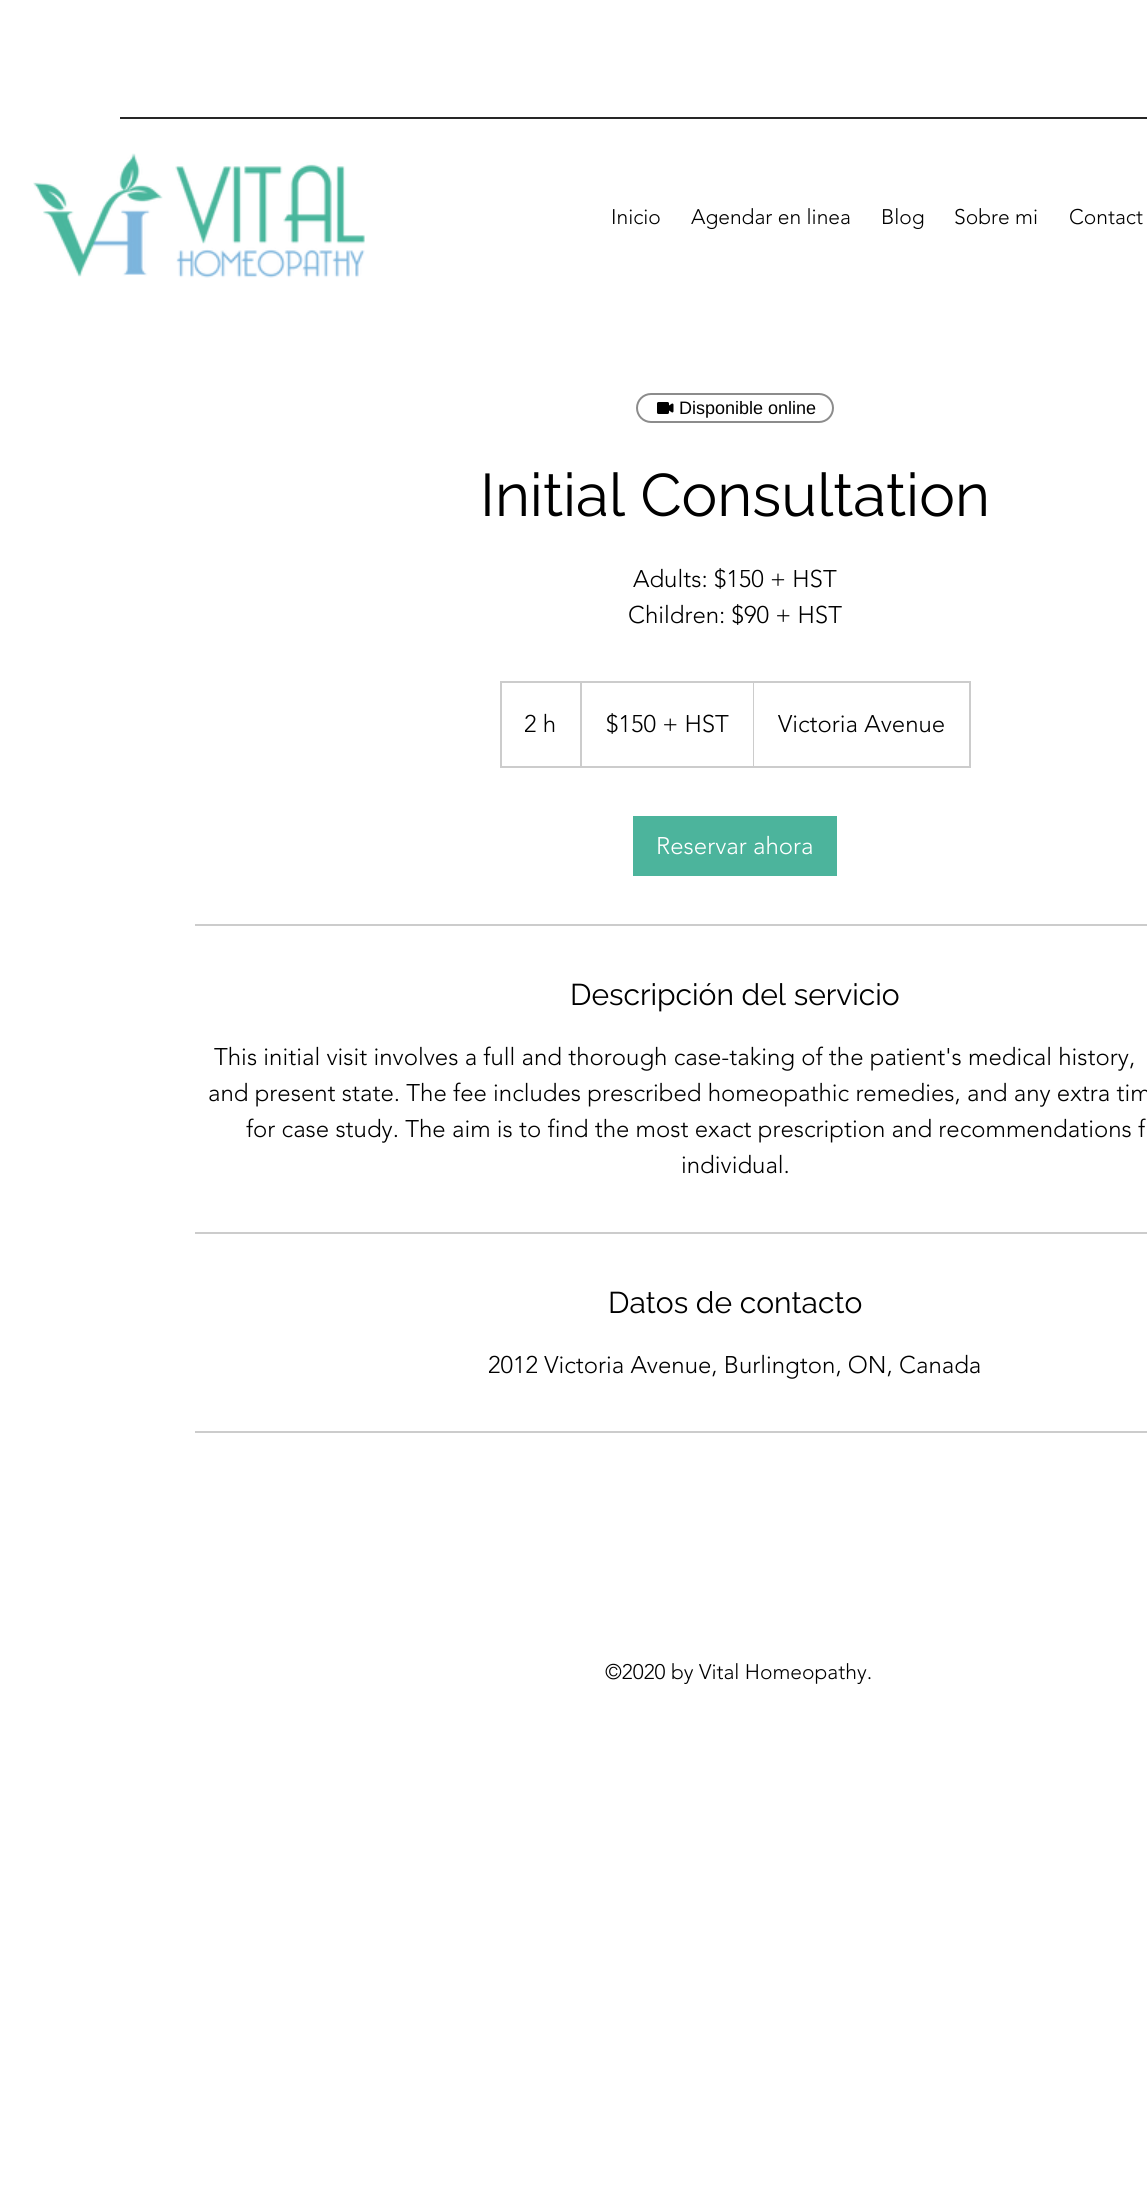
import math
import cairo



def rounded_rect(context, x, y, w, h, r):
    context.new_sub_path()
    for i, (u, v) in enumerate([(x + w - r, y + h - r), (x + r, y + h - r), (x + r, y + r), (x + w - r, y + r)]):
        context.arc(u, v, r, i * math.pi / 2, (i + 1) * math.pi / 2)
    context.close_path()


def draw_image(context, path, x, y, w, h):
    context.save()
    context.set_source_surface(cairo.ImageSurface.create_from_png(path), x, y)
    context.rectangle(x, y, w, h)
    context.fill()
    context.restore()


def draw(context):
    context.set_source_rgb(1, 1, 1)
    context.paint()
    context.set_source_rgb(38 / 255, 38 / 255, 38 / 255)
    context.rectangle(120, 117, 1027, 2)
    context.fill()
    draw_image(context, "images/1.png", 33, 153, 332, 125)
    rounded_rect(context, 637, 394, 196, 28, 14)
    context.set_source_rgb(140 / 255, 140 / 255, 140 / 255)
    context.stroke()
    draw_image(context, "images/2.png", 657, 402, 17, 12)
    context.rectangle(501, 682, 469, 85)
    context.set_source_rgb(204 / 255, 204 / 255, 204 / 255)
    context.stroke()
    context.save()
    context.rectangle(501, 683, 468, 84)
    context.clip()
    context.new_path()
    context.move_to(580, 766)
    context.line_to(580, 681)
    context.line_to(582, 682)
    context.line_to(582, 766)
    context.close_path()
    context.fill()
    context.restore()
    context.new_path()
    context.move_to(753, 766)
    context.line_to(753, 681)
    context.line_to(754, 682)
    context.line_to(754, 766)
    context.close_path()
    context.fill()
    context.set_source_rgb(76 / 255, 180 / 255, 156 / 255)
    context.rectangle(633, 816, 204, 60)
    context.fill()
    context.set_source_rgb(204 / 255, 204 / 255, 204 / 255)
    context.rectangle(195, 924, 952, 2)
    context.fill()
    context.rectangle(195, 1232, 952, 2)
    context.fill()
    context.rectangle(195, 1431, 952, 2)
    context.fill()
    context.select_font_face("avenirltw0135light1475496 Light")
    context.set_font_size(21)
    context.set_source_rgb(0, 0, 0)
    context.move_to(611, 224)
    context.show_text("Inicio")
    context.move_to(691, 224)
    context.show_text("Agendar en linea")
    context.move_to(881, 224)
    context.show_text("Blog")
    context.move_to(954, 224)
    context.show_text("Sobre mi")
    context.move_to(1069, 224)
    context.show_text("Contact")
    context.select_font_face("Liberation Sans")
    context.set_font_size(18)
    context.move_to(679, 414)
    context.show_text("Disponible online")
    context.select_font_face("Raleway")
    context.set_font_size(60)
    context.move_to(480, 516)
    context.show_text("Initial Consultation")
    context.select_font_face("avenirltw0135light1475496 Light")
    context.set_font_size(24)
    context.move_to(633, 587)
    context.show_text("Adults: $150 + HST")
    context.move_to(628, 623)
    context.show_text("Children: $90 + HST")
    context.move_to(524, 732)
    context.show_text("2 h")
    context.move_to(606, 732)
    context.show_text("$150 + HST")
    context.move_to(778, 732)
    context.show_text("Victoria Avenue")
    context.set_source_rgb(1, 1, 1)
    context.move_to(656, 854)
    context.show_text("Reservar ahora")
    context.select_font_face("Raleway")
    context.set_font_size(30)
    context.set_source_rgb(0, 0, 0)
    context.move_to(570, 1005)
    context.show_text("Descripción del servicio")
    context.select_font_face("avenirltw0135light1475496 Light")
    context.set_font_size(24)
    context.move_to(214, 1065)
    context.show_text("This initial visit involves a full and thorough case-taking of the patient's medical history,")
    context.move_to(208, 1101)
    context.show_text("and present state. The fee includes prescribed homeopathic remedies, and any extra tim")
    context.move_to(246, 1137)
    context.show_text("for case study. The aim is to find the most exact prescription and recommendations f")
    context.move_to(681, 1173)
    context.show_text("individual.")
    context.select_font_face("Raleway")
    context.set_font_size(30)
    context.move_to(608, 1313)
    context.show_text("Datos de contacto")
    context.select_font_face("avenirltw0135light1475496 Light")
    context.set_font_size(24)
    context.move_to(488, 1373)
    context.show_text("2012 Victoria Avenue, Burlington, ON, Canada")
    context.set_font_size(21)
    context.move_to(605, 1679)
    context.show_text("©2020 by Vital Homeopathy.")


surface = cairo.ImageSurface(cairo.Format.RGB24, 1147, 2194)
context = cairo.Context(surface)
options = cairo.FontOptions()
options.set_hint_metrics(cairo.HintMetrics.OFF)
options.set_hint_style(cairo.HintStyle.NONE)
context.set_font_options(options)
context.set_miter_limit(4)
draw(context)
surface.write_to_png("out.png")
